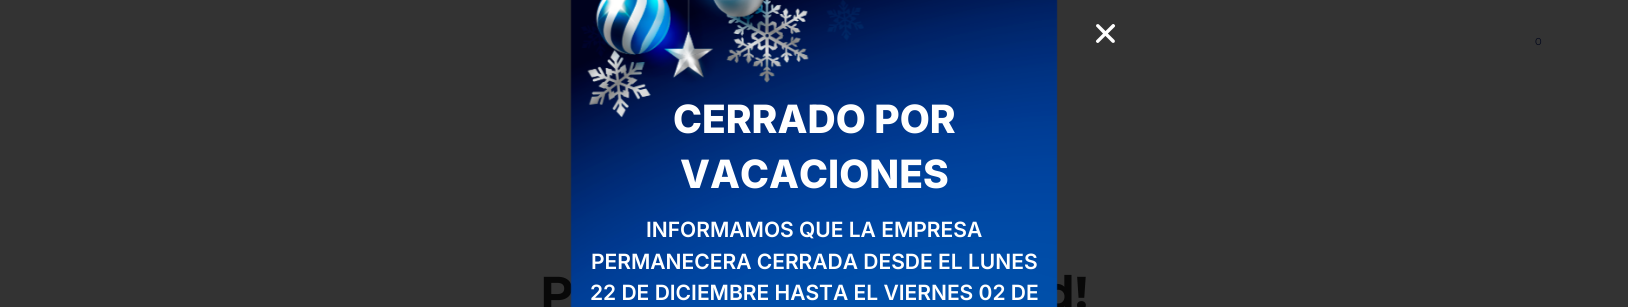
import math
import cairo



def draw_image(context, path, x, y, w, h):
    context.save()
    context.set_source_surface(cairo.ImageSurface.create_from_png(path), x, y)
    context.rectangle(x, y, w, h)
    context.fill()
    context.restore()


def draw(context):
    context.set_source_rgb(51 / 255, 51 / 255, 51 / 255)
    context.paint()
    draw_image(context, "images/1.png", 1095, 24, 21, 19)
    context.select_font_face("Montserrat")
    context.set_font_size(10)
    context.set_source_rgb(0, 5 / 255, 26 / 255)
    context.move_to(1535, 45)
    context.show_text("0")
    context.select_font_face("Montserrat", cairo.FontSlant.NORMAL, cairo.FontWeight.BOLD)
    context.set_font_size(46)
    context.set_source_rgb(8 / 255, 8 / 255, 8 / 255)
    context.move_to(540, 309)
    context.show_text("P")
    context.move_to(1043, 309)
    context.show_text("d!")
    draw_image(context, "images/2.png", 570, 0, 488, 307)
    context.select_font_face("Inter ExtraBold")
    context.set_font_size(39)
    context.set_source_rgb(1, 1, 1)
    context.move_to(673, 133)
    context.show_text("CERRADO POR")
    context.move_to(680, 188)
    context.show_text("VACACIONES")
    context.select_font_face("Inter SemiBold")
    context.set_font_size(21)
    context.move_to(646, 237)
    context.show_text("INFORMAMOS QUE LA EMPRESA")
    context.move_to(591, 269)
    context.show_text("PERMANECERA CERRADA DESDE EL LUNES")
    context.move_to(590, 300)
    context.show_text("22 DE DICIEMBRE HASTA EL VIERNES 02 DE")


surface = cairo.ImageSurface(cairo.Format.RGB24, 1628, 307)
context = cairo.Context(surface)
options = cairo.FontOptions()
options.set_hint_metrics(cairo.HintMetrics.OFF)
options.set_hint_style(cairo.HintStyle.NONE)
context.set_font_options(options)
context.set_miter_limit(4)
draw(context)
surface.write_to_png("out.png")
